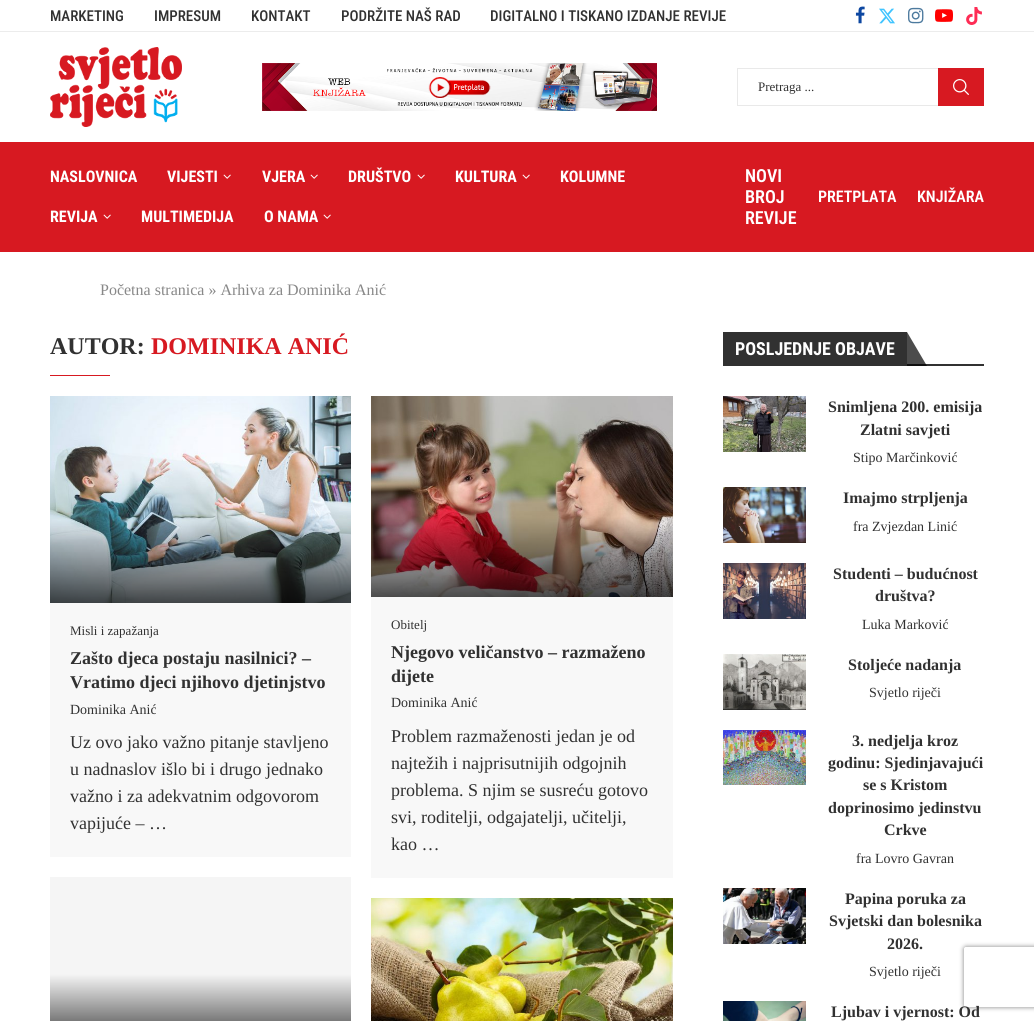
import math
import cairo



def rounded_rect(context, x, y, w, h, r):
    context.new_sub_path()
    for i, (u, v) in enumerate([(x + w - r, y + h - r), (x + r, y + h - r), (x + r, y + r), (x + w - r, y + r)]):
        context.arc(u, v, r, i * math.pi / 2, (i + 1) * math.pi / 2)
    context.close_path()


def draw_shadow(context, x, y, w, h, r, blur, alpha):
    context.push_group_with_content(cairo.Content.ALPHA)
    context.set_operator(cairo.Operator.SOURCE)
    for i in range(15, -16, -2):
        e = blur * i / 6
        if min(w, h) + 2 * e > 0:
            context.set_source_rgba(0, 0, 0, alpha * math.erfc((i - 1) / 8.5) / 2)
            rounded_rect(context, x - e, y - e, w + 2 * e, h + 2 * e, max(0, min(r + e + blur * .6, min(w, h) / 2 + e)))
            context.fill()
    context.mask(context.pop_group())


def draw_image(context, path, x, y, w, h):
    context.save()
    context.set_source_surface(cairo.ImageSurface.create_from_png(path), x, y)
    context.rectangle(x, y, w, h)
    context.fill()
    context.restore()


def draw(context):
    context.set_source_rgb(1, 1, 1)
    context.paint()
    context.set_source_rgb(236 / 255, 236 / 255, 236 / 255)
    context.rectangle(0, 31, 1034, 1)
    context.fill()
    draw_image(context, "images/1.png", 855, 6, 10, 18)
    draw_image(context, "images/2.png", 879, 8, 16, 16)
    draw_image(context, "images/3.png", 908, 7, 16, 17)
    draw_image(context, "images/4.png", 935, 9, 18, 13)
    draw_image(context, "images/5.png", 966, 7, 16, 18)
    draw_image(context, "images/6.png", 50, 47, 132, 80)
    draw_image(context, "images/7.png", 262, 63, 395, 48)
    context.set_source_rgb(233 / 255, 233 / 255, 233 / 255)
    context.rectangle(737, 68, 201, 1)
    context.fill()
    context.rectangle(737, 105, 201, 1)
    context.fill()
    context.rectangle(737, 68, 1, 38)
    context.fill()
    context.set_source_rgb(215 / 255, 25 / 255, 33 / 255)
    context.rectangle(938, 68, 46, 38)
    context.fill()
    draw_image(context, "images/8.png", 953, 79, 16, 16)
    context.rectangle(0, 142, 1034, 110)
    context.fill()
    draw_image(context, "images/9.png", 223, 174, 8, 5)
    draw_image(context, "images/9.png", 310, 174, 8, 5)
    draw_image(context, "images/9.png", 417, 174, 8, 5)
    draw_image(context, "images/9.png", 522, 174, 8, 5)
    draw_image(context, "images/9.png", 103, 214, 8, 5)
    draw_image(context, "images/9.png", 323, 214, 8, 5)
    context.rectangle(50, 375, 60, 1)
    context.fill()
    context.set_source_rgb(248 / 255, 248 / 255, 248 / 255)
    context.rectangle(50, 603, 301, 254)
    context.fill()
    draw_image(context, "images/10.png", 50, 396, 301, 207)
    context.rectangle(371, 597, 302, 281)
    context.fill()
    draw_image(context, "images/11.png", 371, 396, 302, 201)
    gradient = cairo.LinearGradient(201, 877, 201, 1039)
    gradient.add_color_stop_rgba(0.6, 245 / 255, 245 / 255, 245 / 255, 1)
    gradient.add_color_stop_rgba(1, 74 / 255, 74 / 255, 74 / 255, 1)
    context.set_source(gradient)
    context.rectangle(50, 877, 301, 144)
    context.fill()
    draw_image(context, "images/12.png", 371, 898, 302, 123)
    context.set_source_rgb(49 / 255, 49 / 255, 49 / 255)
    context.rectangle(907, 364, 77, 2)
    context.fill()
    context.rectangle(723, 332, 184, 34)
    context.fill()
    context.set_source_rgba(0, 0, 0, 0.7)
    context.new_path()
    context.move_to(927, 366)
    context.line_to(907, 366)
    context.line_to(907, 332)
    context.close_path()
    context.fill()
    draw_image(context, "images/13.png", 723, 396, 83, 56)
    draw_image(context, "images/14.png", 723, 487, 83, 56)
    draw_image(context, "images/15.png", 723, 563, 83, 56)
    draw_image(context, "images/16.png", 723, 654, 83, 56)
    draw_image(context, "images/17.png", 723, 730, 83, 55)
    draw_image(context, "images/18.png", 723, 888, 83, 56)
    draw_image(context, "images/19.png", 723, 1001, 83, 20)
    context.save()
    context.set_fill_rule(cairo.FillRule.EVEN_ODD)
    context.new_path()
    context.move_to(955, 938)
    context.line_to(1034, 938)
    context.line_to(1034, 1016)
    context.line_to(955, 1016)
    context.close_path()
    context.move_to(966, 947)
    context.line_to(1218, 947)
    context.curve_to(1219, 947, 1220, 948, 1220, 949)
    context.line_to(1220, 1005)
    context.curve_to(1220, 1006, 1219, 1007, 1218, 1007)
    context.line_to(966, 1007)
    context.curve_to(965, 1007, 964, 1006, 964, 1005)
    context.line_to(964, 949)
    context.curve_to(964, 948, 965, 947, 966, 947)
    context.close_path()
    context.clip()
    context.set_source_rgb(128 / 255, 128 / 255, 128 / 255)
    draw_shadow(context, 964, 947, 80, 60, 2, 2.5, 1)
    context.restore()
    context.select_font_face("Roboto Condensed Medium")
    context.set_font_size(15)
    context.set_source_rgb(49 / 255, 49 / 255, 49 / 255)
    context.move_to(50, 21)
    context.show_text("MARKETING")
    context.move_to(154, 21)
    context.show_text("IMPRESUM")
    context.move_to(251, 21)
    context.show_text("KONTAKT")
    context.move_to(341, 21)
    context.show_text("PODRŽITE NAŠ RAD")
    context.move_to(490, 21)
    context.show_text("DIGITALNO I TISKANO IZDANJE REVIJE")
    context.select_font_face("Liberation Serif")
    context.set_font_size(13)
    context.move_to(758, 91)
    context.show_text("Pretraga ...")
    context.select_font_face("Roboto Condensed", cairo.FontSlant.NORMAL, cairo.FontWeight.BOLD)
    context.set_font_size(16)
    context.set_source_rgb(1, 1, 1)
    context.move_to(50, 182)
    context.show_text("NASLOVNICA")
    context.move_to(167, 182)
    context.show_text("VIJESTI")
    context.move_to(262, 182)
    context.show_text("VJERA")
    context.move_to(348, 182)
    context.show_text("DRUŠTVO")
    context.move_to(455, 182)
    context.show_text("KULTURA")
    context.move_to(560, 182)
    context.show_text("KOLUMNE")
    context.move_to(50, 222)
    context.show_text("REVIJA")
    context.move_to(141, 222)
    context.show_text("MULTIMEDIJA")
    context.move_to(264, 222)
    context.show_text("O NAMA")
    context.select_font_face("Roboto Condensed SemiBold")
    context.set_font_size(18)
    context.move_to(745, 182)
    context.show_text("NOVI")
    context.move_to(745, 203)
    context.show_text("BROJ")
    context.move_to(745, 224)
    context.show_text("REVIJE")
    context.set_font_size(16)
    context.move_to(818, 202)
    context.show_text("PRETPLATA")
    context.move_to(917, 202)
    context.show_text("KNJIŽARA")
    context.select_font_face("Liberation Serif")
    context.set_source_rgb(136 / 255, 136 / 255, 136 / 255)
    context.move_to(100, 295)
    context.show_text("Početna stranica » Arhiva za Dominika Anić")
    context.select_font_face("Liberation Serif", cairo.FontSlant.NORMAL, cairo.FontWeight.BOLD)
    context.set_font_size(24)
    context.set_source_rgb(49 / 255, 49 / 255, 49 / 255)
    context.move_to(50, 354)
    context.show_text("AUTOR:")
    context.set_source_rgb(215 / 255, 25 / 255, 33 / 255)
    context.move_to(151, 354)
    context.show_text("DOMINIKA ANIĆ")
    context.select_font_face("Liberation Serif")
    context.set_font_size(13)
    context.set_source_rgb(49 / 255, 49 / 255, 49 / 255)
    context.move_to(70, 635)
    context.show_text("Misli i zapažanja")
    context.select_font_face("Liberation Serif", cairo.FontSlant.NORMAL, cairo.FontWeight.BOLD)
    context.set_font_size(18)
    context.move_to(70, 664)
    context.show_text("Zašto djeca postaju nasilnici? –")
    context.move_to(70, 688)
    context.show_text("Vratimo djeci njihovo djetinjstvo")
    context.select_font_face("Liberation Serif")
    context.set_font_size(14)
    context.move_to(70, 714)
    context.show_text("Dominika Anić")
    context.set_font_size(18)
    context.move_to(70, 748)
    context.show_text("Uz ovo jako važno pitanje stavljeno")
    context.move_to(70, 775)
    context.show_text("u nadnaslov išlo bi i drugo jednako")
    context.move_to(70, 802)
    context.show_text("važno i za adekvatnim odgovorom")
    context.move_to(70, 829)
    context.show_text("vapijuće – …")
    context.set_font_size(13)
    context.move_to(391, 629)
    context.show_text("Obitelj")
    context.select_font_face("Liberation Serif", cairo.FontSlant.NORMAL, cairo.FontWeight.BOLD)
    context.set_font_size(18)
    context.move_to(391, 658)
    context.show_text("Njegovo veličanstvo – razmaženo")
    context.move_to(391, 682)
    context.show_text("dijete")
    context.select_font_face("Liberation Serif")
    context.set_font_size(14)
    context.move_to(391, 707)
    context.show_text("Dominika Anić")
    context.set_font_size(18)
    context.move_to(391, 742)
    context.show_text("Problem razmaženosti jedan je od")
    context.move_to(391, 769)
    context.show_text("najtežih i najprisutnijih odgojnih")
    context.move_to(391, 796)
    context.show_text("problema. S njim se susreću gotovo")
    context.move_to(391, 823)
    context.show_text("svi, roditelji, odgajatelji, učitelji,")
    context.move_to(391, 850)
    context.show_text("kao …")
    context.select_font_face("Roboto Condensed", cairo.FontSlant.NORMAL, cairo.FontWeight.BOLD)
    context.set_source_rgb(1, 1, 1)
    context.move_to(735, 355)
    context.show_text("POSLJEDNJE OBJAVE")
    context.select_font_face("Liberation Serif", cairo.FontSlant.NORMAL, cairo.FontWeight.BOLD)
    context.set_font_size(16)
    context.set_source_rgb(49 / 255, 49 / 255, 49 / 255)
    context.move_to(828, 412)
    context.show_text("Snimljena 200. emisija")
    context.move_to(860, 435)
    context.show_text("Zlatni savjeti")
    context.select_font_face("Liberation Serif")
    context.set_font_size(14)
    context.move_to(853, 462)
    context.show_text("Stipo Marčinković")
    context.select_font_face("Liberation Serif", cairo.FontSlant.NORMAL, cairo.FontWeight.BOLD)
    context.set_font_size(16)
    context.move_to(843, 503)
    context.show_text("Imajmo strpljenja")
    context.select_font_face("Liberation Serif")
    context.set_font_size(14)
    context.move_to(853, 531)
    context.show_text("fra Zvjezdan Linić")
    context.select_font_face("Liberation Serif", cairo.FontSlant.NORMAL, cairo.FontWeight.BOLD)
    context.set_font_size(16)
    context.move_to(833, 579)
    context.show_text("Studenti – budućnost")
    context.move_to(875, 601)
    context.show_text("društva?")
    context.select_font_face("Liberation Serif")
    context.set_font_size(14)
    context.move_to(862, 629)
    context.show_text("Luka Marković")
    context.select_font_face("Liberation Serif", cairo.FontSlant.NORMAL, cairo.FontWeight.BOLD)
    context.set_font_size(16)
    context.move_to(848, 670)
    context.show_text("Stoljeće nadanja")
    context.select_font_face("Liberation Serif")
    context.set_font_size(14)
    context.move_to(869, 697)
    context.show_text("Svjetlo riječi")
    context.select_font_face("Liberation Serif", cairo.FontSlant.NORMAL, cairo.FontWeight.BOLD)
    context.set_font_size(16)
    context.move_to(852, 746)
    context.show_text("3. nedjelja kroz")
    context.move_to(828, 768)
    context.show_text("godinu: Sjedinjavajući")
    context.move_to(863, 790)
    context.show_text("se s Kristom")
    context.move_to(828, 813)
    context.show_text("doprinosimo jedinstvu")
    context.move_to(884, 835)
    context.show_text("Crkve")
    context.select_font_face("Liberation Serif")
    context.set_font_size(14)
    context.move_to(856, 863)
    context.show_text("fra Lovro Gavran")
    context.select_font_face("Liberation Serif", cairo.FontSlant.NORMAL, cairo.FontWeight.BOLD)
    context.set_font_size(16)
    context.move_to(845, 904)
    context.show_text("Papina poruka za")
    context.move_to(829, 926)
    context.show_text("Svjetski dan bolesnika")
    context.move_to(887, 949)
    context.show_text("2026.")
    context.select_font_face("Liberation Serif")
    context.set_font_size(14)
    context.move_to(869, 976)
    context.show_text("Svjetlo riječi")
    context.select_font_face("Liberation Serif", cairo.FontSlant.NORMAL, cairo.FontWeight.BOLD)
    context.set_font_size(16)
    context.move_to(831, 1017)
    context.show_text("Ljubav i vjernost: Od")


surface = cairo.ImageSurface(cairo.Format.RGB24, 1034, 1021)
context = cairo.Context(surface)
options = cairo.FontOptions()
options.set_hint_metrics(cairo.HintMetrics.OFF)
options.set_hint_style(cairo.HintStyle.NONE)
context.set_font_options(options)
context.set_miter_limit(4)
draw(context)
surface.write_to_png("out.png")
